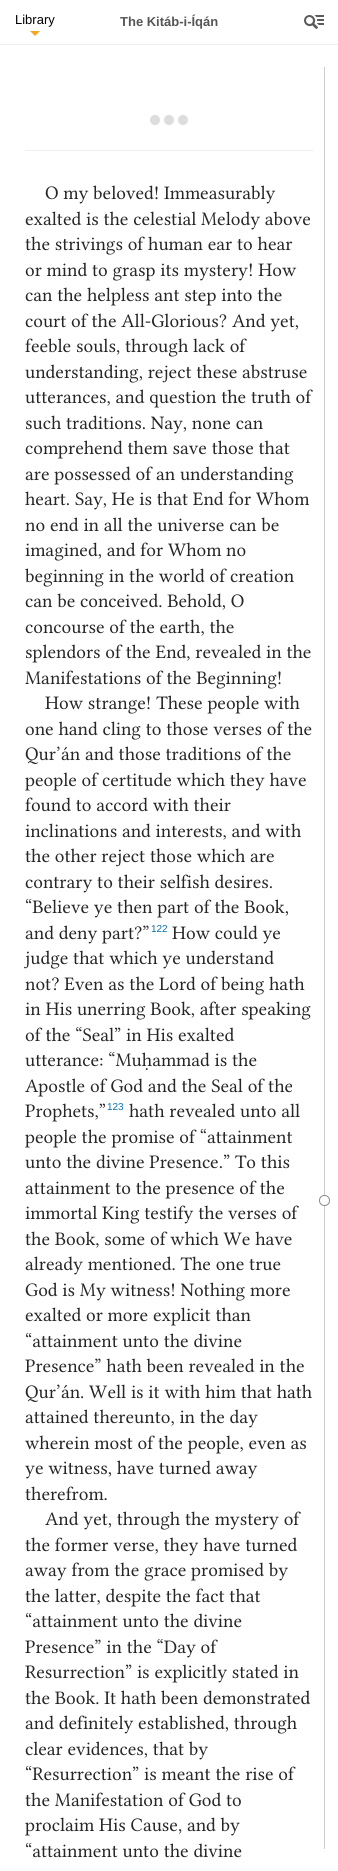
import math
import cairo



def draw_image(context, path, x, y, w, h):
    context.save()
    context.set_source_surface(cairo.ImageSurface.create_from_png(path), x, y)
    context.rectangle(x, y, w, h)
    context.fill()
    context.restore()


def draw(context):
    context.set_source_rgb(1, 1, 1)
    context.paint()
    context.set_source_rgb(238 / 255, 238 / 255, 238 / 255)
    context.rectangle(0, 44, 338, 1)
    context.fill()
    context.set_source_rgb(245 / 255, 166 / 255, 35 / 255)
    context.new_path()
    context.move_to(30, 31)
    context.line_to(40, 31)
    context.line_to(35, 36)
    context.close_path()
    context.fill()
    draw_image(context, "images/1.png", 304, 15, 20, 14)
    context.set_source_rgb(238 / 255, 238 / 255, 238 / 255)
    context.rectangle(25, 150, 288, 1)
    context.fill()
    context.set_source_rgb(221 / 255, 221 / 255, 221 / 255)
    context.arc(155, 120, 5, 0, 2 * math.pi)
    context.fill()
    context.arc(169, 120, 5, 0, 2 * math.pi)
    context.fill()
    context.arc(183, 120, 5, 0, 2 * math.pi)
    context.fill()
    context.set_source_rgb(204 / 255, 204 / 255, 204 / 255)
    context.rectangle(324, 67, 1, 1782)
    context.fill()
    context.set_source_rgb(1, 1, 1)
    context.arc(324.5, 1200.5, 5, 0, 2 * math.pi)
    context.fill_preserve()
    context.set_source_rgb(136 / 255, 136 / 255, 136 / 255)
    context.set_line_width(1)
    context.stroke()
    context.select_font_face("Liberation Sans")
    context.set_font_size(13)
    context.set_source_rgb(0, 0, 0)
    context.move_to(15, 24)
    context.show_text("Library")
    context.select_font_face("Liberation Sans", cairo.FontSlant.NORMAL, cairo.FontWeight.BOLD)
    context.set_source_rgb(86 / 255, 86 / 255, 86 / 255)
    context.move_to(120, 26)
    context.show_text("The Kitáb-i-Íqán")
    context.select_font_face("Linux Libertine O")
    context.set_font_size(17)
    context.set_source_rgb(38 / 255, 38 / 255, 38 / 255)
    context.move_to(45, 199)
    context.show_text("O my beloved! Immeasurably")
    context.move_to(25, 225)
    context.show_text("exalted is the celestial Melody above")
    context.move_to(25, 250)
    context.show_text("the strivings of human ear to hear")
    context.move_to(25, 276)
    context.show_text("or mind to grasp its mystery! How")
    context.move_to(25, 301)
    context.show_text("can the helpless ant step into the")
    context.move_to(25, 327)
    context.show_text("court of the All-Glorious? And yet,")
    context.move_to(25, 352)
    context.show_text("feeble souls, through lack of")
    context.move_to(25, 378)
    context.show_text("understanding, reject these abstruse")
    context.move_to(25, 403)
    context.show_text("utterances, and question the truth of")
    context.move_to(25, 429)
    context.show_text("such traditions. Nay, none can")
    context.move_to(25, 454)
    context.show_text("comprehend them save those that")
    context.move_to(25, 480)
    context.show_text("are possessed of an understanding")
    context.move_to(25, 505)
    context.show_text("heart. Say, He is that End for Whom")
    context.move_to(25, 531)
    context.show_text("no end in all the universe can be")
    context.move_to(25, 556)
    context.show_text("imagined, and for Whom no")
    context.move_to(25, 582)
    context.show_text("beginning in the world of creation")
    context.move_to(25, 607)
    context.show_text("can be conceived. Behold, O")
    context.move_to(25, 633)
    context.show_text("concourse of the earth, the")
    context.move_to(25, 658)
    context.show_text("splendors of the End, revealed in the")
    context.move_to(25, 684)
    context.show_text("Manifestations of the Beginning!")
    context.move_to(45, 709)
    context.show_text("How strange! These people with")
    context.move_to(25, 735)
    context.show_text("one hand cling to those verses of the")
    context.move_to(25, 760)
    context.show_text("Qur’án and those traditions of the")
    context.move_to(25, 786)
    context.show_text("people of certitude which they have")
    context.move_to(25, 811)
    context.show_text("found to accord with their")
    context.move_to(25, 837)
    context.show_text("inclinations and interests, and with")
    context.move_to(25, 862)
    context.show_text("the other reject those which are")
    context.move_to(25, 888)
    context.show_text("contrary to their selfish desires.")
    context.move_to(25, 913)
    context.show_text("“Believe ye then part of the Book,")
    context.move_to(25, 939)
    context.show_text("and deny part?”")
    context.select_font_face("Liberation Sans")
    context.set_font_size(10)
    context.set_source_rgb(5 / 255, 113 / 255, 175 / 255)
    context.move_to(151, 932)
    context.show_text("122")
    context.select_font_face("Linux Libertine O")
    context.set_font_size(17)
    context.set_source_rgb(38 / 255, 38 / 255, 38 / 255)
    context.move_to(172, 939)
    context.show_text("How could ye")
    context.move_to(25, 964)
    context.show_text("judge that which ye understand")
    context.move_to(25, 990)
    context.show_text("not? Even as the Lord of being hath")
    context.move_to(25, 1015)
    context.show_text("in His unerring Book, after speaking")
    context.move_to(25, 1041)
    context.show_text("of the “Seal” in His exalted")
    context.move_to(25, 1066)
    context.show_text("utterance: “Muḥammad is the")
    context.move_to(25, 1092)
    context.show_text("Apostle of God and the Seal of the")
    context.move_to(25, 1117)
    context.show_text("Prophets,”")
    context.select_font_face("Liberation Sans")
    context.set_font_size(10)
    context.set_source_rgb(5 / 255, 113 / 255, 175 / 255)
    context.move_to(107, 1110)
    context.show_text("123")
    context.select_font_face("Linux Libertine O")
    context.set_font_size(17)
    context.set_source_rgb(38 / 255, 38 / 255, 38 / 255)
    context.move_to(129, 1117)
    context.show_text("hath revealed unto all")
    context.move_to(25, 1143)
    context.show_text("people the promise of “attainment")
    context.move_to(25, 1168)
    context.show_text("unto the divine Presence.” To this")
    context.move_to(25, 1194)
    context.show_text("attainment to the presence of the")
    context.move_to(25, 1219)
    context.show_text("immortal King testify the verses of")
    context.move_to(25, 1245)
    context.show_text("the Book, some of which We have")
    context.move_to(25, 1270)
    context.show_text("already mentioned. The one true")
    context.move_to(25, 1296)
    context.show_text("God is My witness! Nothing more")
    context.move_to(25, 1321)
    context.show_text("exalted or more explicit than")
    context.move_to(25, 1347)
    context.show_text("“attainment unto the divine")
    context.move_to(25, 1372)
    context.show_text("Presence” hath been revealed in the")
    context.move_to(25, 1398)
    context.show_text("Qur’án. Well is it with him that hath")
    context.move_to(25, 1423)
    context.show_text("attained thereunto, in the day")
    context.move_to(25, 1449)
    context.show_text("wherein most of the people, even as")
    context.move_to(25, 1474)
    context.show_text("ye witness, have turned away")
    context.move_to(25, 1500)
    context.show_text("therefrom.")
    context.move_to(45, 1525)
    context.show_text("And yet, through the mystery of")
    context.move_to(25, 1551)
    context.show_text("the former verse, they have turned")
    context.move_to(25, 1576)
    context.show_text("away from the grace promised by")
    context.move_to(25, 1602)
    context.show_text("the latter, despite the fact that")
    context.move_to(25, 1627)
    context.show_text("“attainment unto the divine")
    context.move_to(25, 1653)
    context.show_text("Presence” in the “Day of")
    context.move_to(25, 1678)
    context.show_text("Resurrection” is explicitly stated in")
    context.move_to(25, 1704)
    context.show_text("the Book. It hath been demonstrated")
    context.move_to(25, 1729)
    context.show_text("and definitely established, through")
    context.move_to(25, 1755)
    context.show_text("clear evidences, that by")
    context.move_to(25, 1780)
    context.show_text("“Resurrection” is meant the rise of")
    context.move_to(25, 1806)
    context.show_text("the Manifestation of God to")
    context.move_to(25, 1831)
    context.show_text("proclaim His Cause, and by")
    context.move_to(25, 1857)
    context.show_text("“attainment unto the divine")


surface = cairo.ImageSurface(cairo.Format.RGB24, 338, 1871)
context = cairo.Context(surface)
options = cairo.FontOptions()
options.set_hint_metrics(cairo.HintMetrics.OFF)
options.set_hint_style(cairo.HintStyle.NONE)
context.set_font_options(options)
context.set_miter_limit(4)
draw(context)
surface.write_to_png("out.png")
